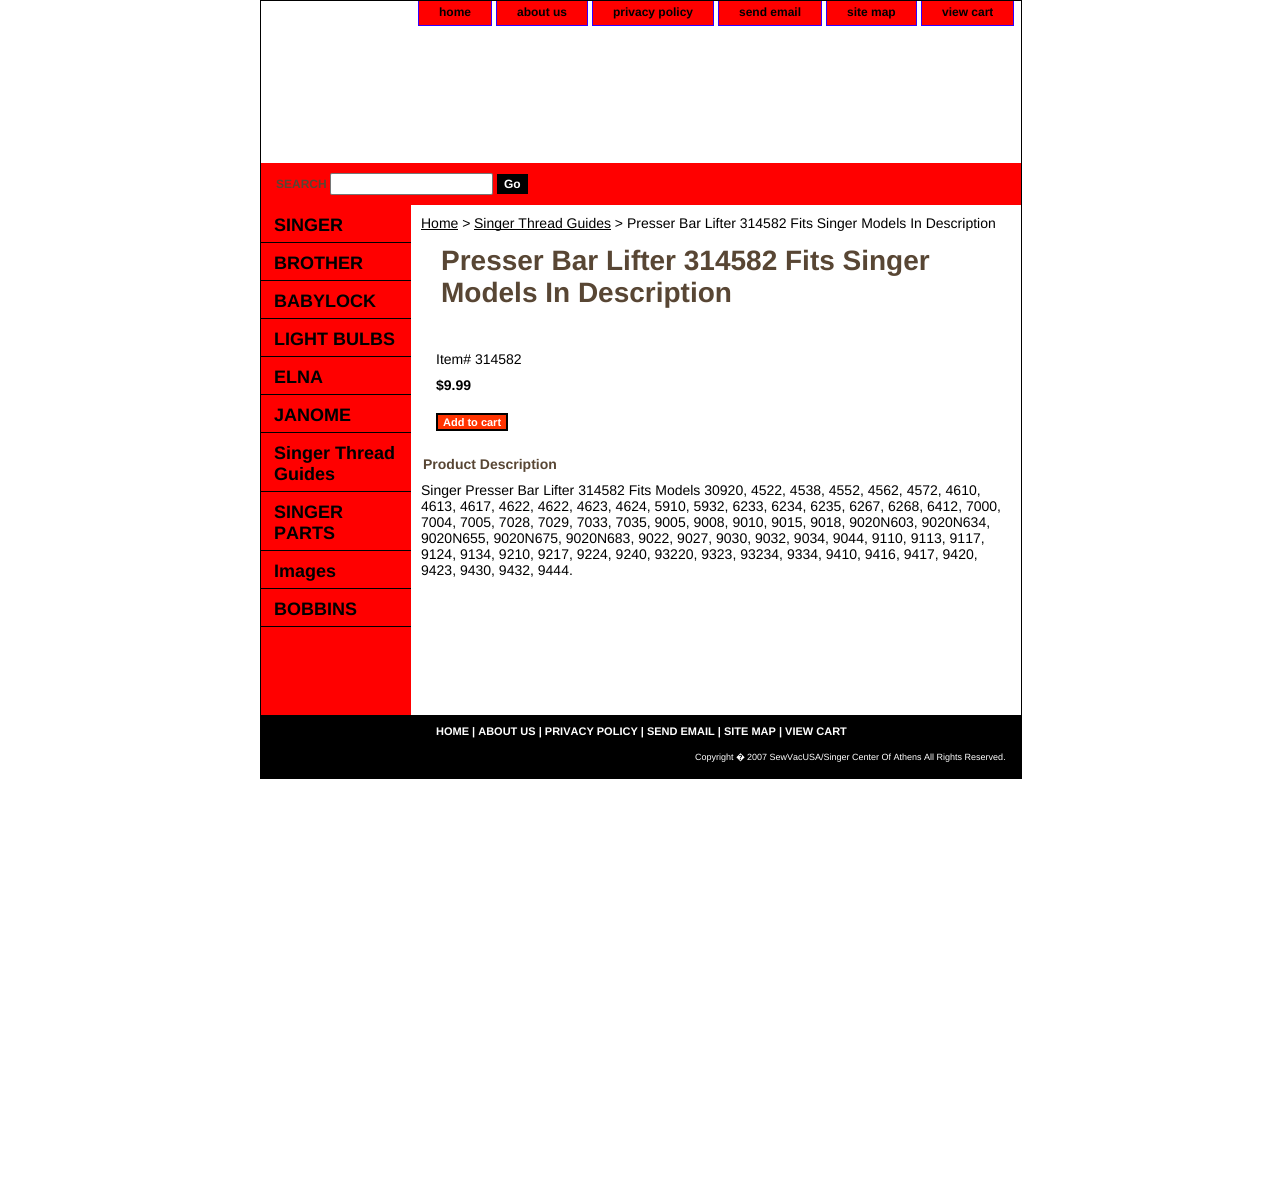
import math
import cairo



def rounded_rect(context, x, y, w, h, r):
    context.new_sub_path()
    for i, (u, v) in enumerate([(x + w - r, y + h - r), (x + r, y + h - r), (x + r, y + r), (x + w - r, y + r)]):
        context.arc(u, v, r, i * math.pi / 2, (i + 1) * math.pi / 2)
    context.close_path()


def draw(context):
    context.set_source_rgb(1, 1, 1)
    context.paint()
    context.rectangle(260.5, 0.5, 761, 778)
    context.set_source_rgb(0, 0, 0)
    context.set_line_width(1)
    context.stroke()
    context.set_source_rgb(1, 0, 0)
    context.rectangle(419, 1, 72, 24)
    context.fill()
    context.set_source_rgb(51 / 255, 0, 1)
    context.rectangle(491, 1, 1, 25)
    context.fill()
    context.rectangle(418, 25, 74, 1)
    context.fill()
    context.rectangle(418, 1, 1, 25)
    context.fill()
    context.set_source_rgb(1, 0, 0)
    context.rectangle(497, 1, 90, 24)
    context.fill()
    context.set_source_rgb(51 / 255, 0, 1)
    context.rectangle(587, 1, 1, 25)
    context.fill()
    context.rectangle(496, 25, 92, 1)
    context.fill()
    context.rectangle(496, 1, 1, 25)
    context.fill()
    context.set_source_rgb(1, 0, 0)
    context.rectangle(593, 1, 120, 24)
    context.fill()
    context.set_source_rgb(51 / 255, 0, 1)
    context.rectangle(713, 1, 1, 25)
    context.fill()
    context.rectangle(592, 25, 122, 1)
    context.fill()
    context.rectangle(592, 1, 1, 25)
    context.fill()
    context.set_source_rgb(1, 0, 0)
    context.rectangle(719, 1, 102, 24)
    context.fill()
    context.set_source_rgb(51 / 255, 0, 1)
    context.rectangle(821, 1, 1, 25)
    context.fill()
    context.rectangle(718, 25, 104, 1)
    context.fill()
    context.rectangle(718, 1, 1, 25)
    context.fill()
    context.set_source_rgb(1, 0, 0)
    context.rectangle(827, 1, 89, 24)
    context.fill()
    context.set_source_rgb(51 / 255, 0, 1)
    context.rectangle(916, 1, 1, 25)
    context.fill()
    context.rectangle(826, 25, 91, 1)
    context.fill()
    context.rectangle(826, 1, 1, 25)
    context.fill()
    context.set_source_rgb(1, 0, 0)
    context.rectangle(922, 1, 91, 24)
    context.fill()
    context.set_source_rgb(51 / 255, 0, 1)
    context.rectangle(1013, 1, 1, 25)
    context.fill()
    context.rectangle(921, 25, 93, 1)
    context.fill()
    context.rectangle(921, 1, 1, 25)
    context.fill()
    context.set_source_rgb(1, 0, 0)
    context.rectangle(261, 163, 760, 42)
    context.fill()
    context.set_source_rgb(1, 1, 1)
    rounded_rect(context, 330.5, 173.5, 162, 21, 1.5)
    context.fill_preserve()
    context.set_source_rgb(118 / 255, 118 / 255, 118 / 255)
    context.stroke()
    context.set_source_rgb(0, 0, 0)
    context.rectangle(497, 174, 31, 20)
    context.fill()
    context.set_source_rgb(1, 0, 0)
    context.rectangle(261, 205, 150, 510)
    context.fill()
    context.set_source_rgb(0, 0, 0)
    context.rectangle(261, 242, 150, 1)
    context.fill()
    context.rectangle(261, 280, 150, 1)
    context.fill()
    context.rectangle(261, 318, 150, 1)
    context.fill()
    context.rectangle(261, 356, 150, 1)
    context.fill()
    context.rectangle(261, 394, 150, 1)
    context.fill()
    context.rectangle(261, 432, 150, 1)
    context.fill()
    context.rectangle(261, 491, 150, 1)
    context.fill()
    context.rectangle(261, 550, 150, 1)
    context.fill()
    context.rectangle(261, 588, 150, 1)
    context.fill()
    context.rectangle(261, 626, 150, 1)
    context.fill()
    context.rectangle(421, 229, 37, 1)
    context.fill()
    context.rectangle(474, 229, 137, 1)
    context.fill()
    context.set_source_rgb(1, 51 / 255, 0)
    context.rectangle(437, 414, 70, 16)
    context.fill_preserve()
    context.set_source_rgb(0, 0, 0)
    context.set_line_width(2)
    context.stroke()
    context.rectangle(261, 715, 760, 63)
    context.fill()
    context.select_font_face("Liberation Sans", cairo.FontSlant.NORMAL, cairo.FontWeight.BOLD)
    context.set_font_size(12)
    context.move_to(439, 16)
    context.show_text("home")
    context.move_to(517, 16)
    context.show_text("about us")
    context.move_to(613, 16)
    context.show_text("privacy policy")
    context.move_to(739, 16)
    context.show_text("send email")
    context.move_to(847, 16)
    context.show_text("site map")
    context.move_to(942, 16)
    context.show_text("view cart")
    context.set_source_rgb(88 / 255, 70 / 255, 52 / 255)
    context.move_to(276, 188)
    context.show_text("SEARCH")
    context.set_source_rgb(1, 1, 1)
    context.move_to(504, 188)
    context.show_text("Go")
    context.set_font_size(18)
    context.set_source_rgb(0, 0, 0)
    context.move_to(274, 231)
    context.show_text("SINGER")
    context.move_to(274, 269)
    context.show_text("BROTHER")
    context.move_to(274, 307)
    context.show_text("BABYLOCK")
    context.move_to(274, 345)
    context.show_text("LIGHT BULBS")
    context.move_to(274, 383)
    context.show_text("ELNA")
    context.move_to(274, 421)
    context.show_text("JANOME")
    context.move_to(274, 459)
    context.show_text("Singer Thread")
    context.move_to(274, 480)
    context.show_text("Guides")
    context.move_to(274, 518)
    context.show_text("SINGER")
    context.move_to(274, 539)
    context.show_text("PARTS")
    context.move_to(274, 577)
    context.show_text("Images")
    context.move_to(274, 615)
    context.show_text("BOBBINS")
    context.select_font_face("Liberation Sans")
    context.set_font_size(14)
    context.move_to(421, 228)
    context.show_text("Home >")
    context.move_to(474, 228)
    context.show_text("Singer Thread Guides > Presser Bar Lifter 314582 Fits Singer Models In Description")
    context.select_font_face("Liberation Sans", cairo.FontSlant.NORMAL, cairo.FontWeight.BOLD)
    context.set_font_size(28)
    context.set_source_rgb(88 / 255, 70 / 255, 52 / 255)
    context.move_to(441, 270)
    context.show_text("Presser Bar Lifter 314582 Fits Singer")
    context.move_to(441, 302)
    context.show_text("Models In Description")
    context.select_font_face("Liberation Sans")
    context.set_font_size(14)
    context.set_source_rgb(0, 0, 0)
    context.move_to(436, 364)
    context.show_text("Item# 314582")
    context.select_font_face("Liberation Sans", cairo.FontSlant.NORMAL, cairo.FontWeight.BOLD)
    context.move_to(436, 390)
    context.show_text("$9.99")
    context.set_font_size(11)
    context.set_source_rgb(1, 1, 1)
    context.move_to(443, 426)
    context.show_text("Add to cart")
    context.set_font_size(14)
    context.set_source_rgb(88 / 255, 70 / 255, 52 / 255)
    context.move_to(423, 469)
    context.show_text("Product Description")
    context.select_font_face("Liberation Sans")
    context.set_source_rgb(0, 0, 0)
    context.move_to(421, 495)
    context.show_text("Singer Presser Bar Lifter 314582 Fits Models 30920, 4522, 4538, 4552, 4562, 4572, 4610,")
    context.move_to(421, 511)
    context.show_text("4613, 4617, 4622, 4622, 4623, 4624, 5910, 5932, 6233, 6234, 6235, 6267, 6268, 6412, 7000,")
    context.move_to(421, 527)
    context.show_text("7004, 7005, 7028, 7029, 7033, 7035, 9005, 9008, 9010, 9015, 9018, 9020N603, 9020N634,")
    context.move_to(421, 543)
    context.show_text("9020N655, 9020N675, 9020N683, 9022, 9027, 9030, 9032, 9034, 9044, 9110, 9113, 9117,")
    context.move_to(421, 559)
    context.show_text("9124, 9134, 9210, 9217, 9224, 9240, 93220, 9323, 93234, 9334, 9410, 9416, 9417, 9420,")
    context.move_to(421, 575)
    context.show_text("9423, 9430, 9432, 9444.")
    context.select_font_face("Liberation Sans", cairo.FontSlant.NORMAL, cairo.FontWeight.BOLD)
    context.set_font_size(11)
    context.set_source_rgb(1, 1, 1)
    context.move_to(436, 735)
    context.show_text("HOME | ABOUT US | PRIVACY POLICY | SEND EMAIL | SITE MAP | VIEW CART")
    context.select_font_face("Liberation Sans")
    context.set_font_size(9)
    context.move_to(695, 760)
    context.show_text("Copyright")
    context.select_font_face("Noto Sans")
    context.move_to(736, 760)
    context.show_text("�")
    context.select_font_face("Liberation Sans")
    context.move_to(747, 760)
    context.show_text("2007 SewVacUSA/Singer Center Of Athens All Rights Reserved.")


surface = cairo.ImageSurface(cairo.Format.RGB24, 1282, 1192)
context = cairo.Context(surface)
options = cairo.FontOptions()
options.set_hint_metrics(cairo.HintMetrics.OFF)
options.set_hint_style(cairo.HintStyle.NONE)
context.set_font_options(options)
context.set_miter_limit(4)
draw(context)
surface.write_to_png("out.png")
